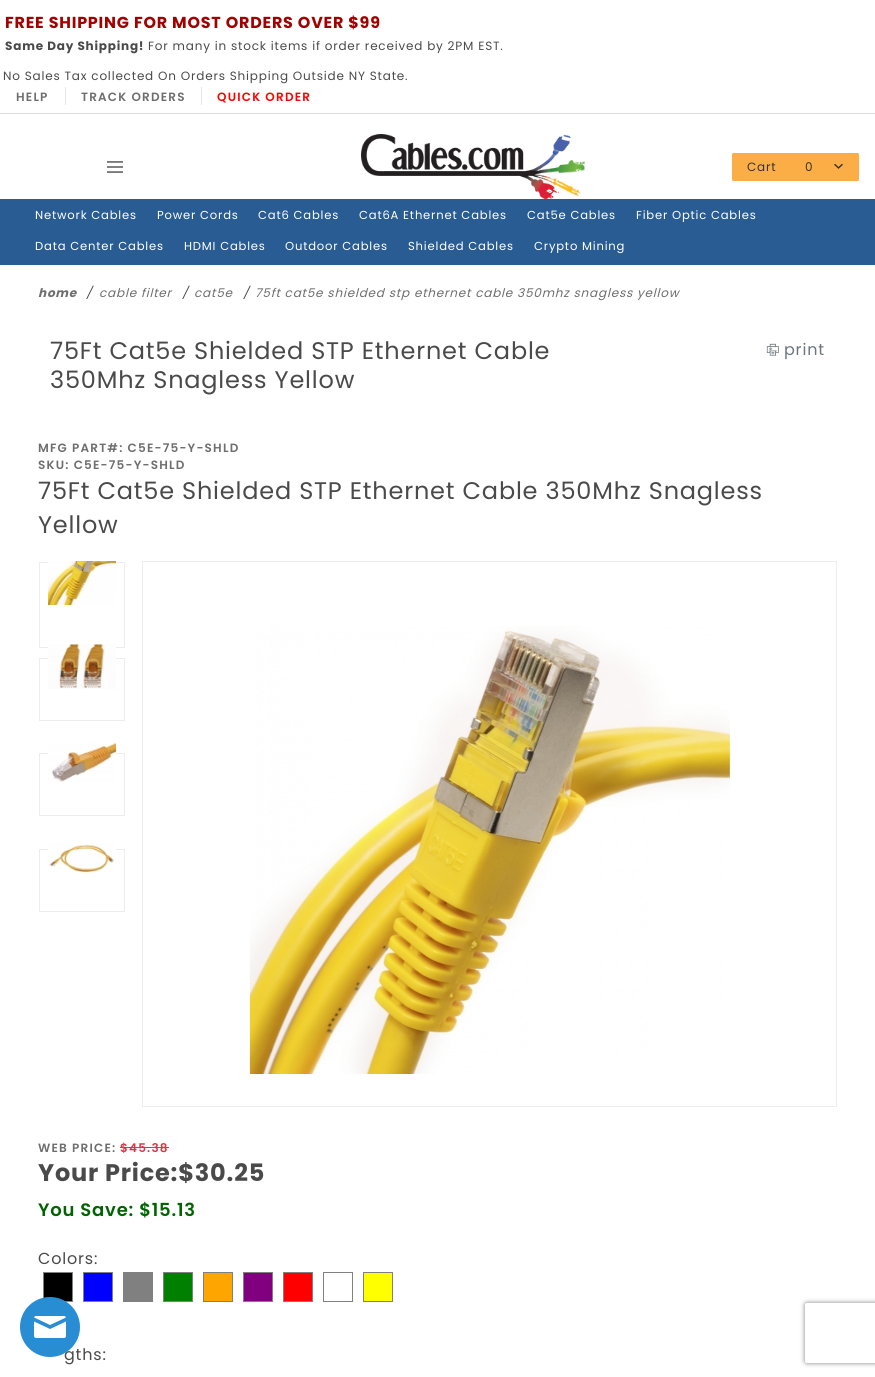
import math
import cairo



def draw_spaced(context, x, y, s, letter, word):
    context.move_to(x, y)
    for ch in s:
        context.show_text(ch)
        context.rel_move_to(letter + word * (ch == ' '), 0)


def rounded_rect(context, x, y, w, h, r):
    context.new_sub_path()
    for i, (u, v) in enumerate([(x + w - r, y + h - r), (x + r, y + h - r), (x + r, y + r), (x + w - r, y + r)]):
        context.arc(u, v, r, i * math.pi / 2, (i + 1) * math.pi / 2)
    context.close_path()


def draw_shadow(context, x, y, w, h, r, blur, alpha):
    context.push_group_with_content(cairo.Content.ALPHA)
    context.set_operator(cairo.Operator.SOURCE)
    for i in range(15, -16, -2):
        e = blur * i / 6
        if min(w, h) + 2 * e > 0:
            context.set_source_rgba(0, 0, 0, alpha * math.erfc((i - 1) / 8.5) / 2)
            rounded_rect(context, x - e, y - e, w + 2 * e, h + 2 * e, max(0, min(r + e + blur * .6, min(w, h) / 2 + e)))
            context.fill()
    context.mask(context.pop_group())


def draw_image(context, path, x, y, w, h):
    context.save()
    context.set_source_surface(cairo.ImageSurface.create_from_png(path), x, y)
    context.rectangle(x, y, w, h)
    context.fill()
    context.restore()


def draw(context):
    context.set_source_rgb(1, 1, 1)
    context.paint()
    context.set_source_rgb(220 / 255, 220 / 255, 220 / 255)
    context.rectangle(0, 113, 875, 1)
    context.fill()
    context.set_source_rgb(229 / 255, 229 / 255, 229 / 255)
    context.rectangle(65, 87, 1, 18)
    context.fill()
    context.rectangle(201, 87, 1, 18)
    context.fill()
    draw_image(context, "images/1.png", 107, 161, 16, 12)
    draw_image(context, "images/2.png", 361, 134, 224, 65)
    context.set_source_rgb(252 / 255, 174 / 255, 70 / 255)
    rounded_rect(context, 732, 153, 127, 28, 1.5)
    context.fill()
    context.set_source_rgb(40 / 255, 92 / 255, 146 / 255)
    context.rectangle(0, 199, 875, 66)
    context.fill()
    draw_image(context, "images/3.png", 766, 343, 13, 13)
    context.rectangle(39.5, 562.5, 85, 85)
    context.set_source_rgb(237 / 255, 237 / 255, 237 / 255)
    context.set_line_width(1)
    context.stroke()
    draw_image(context, "images/4.png", 48, 561, 68, 44)
    context.rectangle(39.5, 658.5, 85, 62)
    context.stroke()
    draw_image(context, "images/5.png", 48, 644, 68, 45)
    context.rectangle(39.5, 753.5, 85, 62)
    context.stroke()
    draw_image(context, "images/6.png", 48, 742, 68, 40)
    context.rectangle(39.5, 849.5, 85, 62)
    context.stroke()
    draw_image(context, "images/7.png", 48, 843, 68, 31)
    context.rectangle(142.5, 561.5, 694, 545)
    context.stroke()
    draw_image(context, "images/8.png", 249, 626, 481, 448)
    context.set_source_rgb(220 / 255, 53 / 255, 69 / 255)
    context.rectangle(120, 1147, 49, 1)
    context.fill()
    context.set_source_rgb(0, 0, 0)
    context.rectangle(43.5, 1272.5, 29, 29)
    context.fill_preserve()
    context.set_source_rgb(128 / 255, 128 / 255, 128 / 255)
    context.stroke()
    context.set_source_rgb(0, 0, 1)
    context.rectangle(83.5, 1272.5, 29, 29)
    context.fill_preserve()
    context.set_source_rgb(128 / 255, 128 / 255, 128 / 255)
    context.stroke()
    context.rectangle(123, 1272, 30, 30)
    context.fill()
    context.set_source_rgb(0, 128 / 255, 0)
    context.rectangle(163.5, 1272.5, 29, 29)
    context.fill_preserve()
    context.set_source_rgb(128 / 255, 128 / 255, 128 / 255)
    context.stroke()
    context.set_source_rgb(1, 165 / 255, 0)
    context.rectangle(203.5, 1272.5, 29, 29)
    context.fill_preserve()
    context.set_source_rgb(128 / 255, 128 / 255, 128 / 255)
    context.stroke()
    context.set_source_rgb(128 / 255, 0, 128 / 255)
    context.rectangle(243.5, 1272.5, 29, 29)
    context.fill_preserve()
    context.set_source_rgb(128 / 255, 128 / 255, 128 / 255)
    context.stroke()
    context.set_source_rgb(1, 0, 0)
    context.rectangle(283.5, 1272.5, 29, 29)
    context.fill_preserve()
    context.set_source_rgb(128 / 255, 128 / 255, 128 / 255)
    context.stroke()
    context.rectangle(323.5, 1272.5, 29, 29)
    context.stroke()
    context.set_source_rgb(1, 1, 0)
    context.rectangle(363.5, 1272.5, 29, 29)
    context.fill_preserve()
    context.set_source_rgb(128 / 255, 128 / 255, 128 / 255)
    context.stroke()
    context.save()
    context.set_fill_rule(cairo.FillRule.EVEN_ODD)
    context.new_path()
    context.move_to(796, 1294)
    context.line_to(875, 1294)
    context.line_to(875, 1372)
    context.line_to(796, 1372)
    context.close_path()
    context.move_to(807, 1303)
    context.line_to(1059, 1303)
    context.curve_to(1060, 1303, 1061, 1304, 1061, 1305)
    context.line_to(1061, 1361)
    context.curve_to(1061, 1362, 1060, 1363, 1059, 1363)
    context.line_to(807, 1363)
    context.curve_to(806, 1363, 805, 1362, 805, 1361)
    context.line_to(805, 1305)
    context.curve_to(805, 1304, 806, 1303, 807, 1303)
    context.close_path()
    context.clip()
    context.set_source_rgb(128 / 255, 128 / 255, 128 / 255)
    draw_shadow(context, 805, 1303, 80, 60, 2, 2.5, 1)
    context.restore()
    context.select_font_face("Poppins", cairo.FontSlant.NORMAL, cairo.FontWeight.BOLD)
    context.set_font_size(15.9)
    context.set_source_rgb(163 / 255, 0, 0)
    draw_spaced(context, 5, 28, "FREE SHIPPING FOR MOST ORDERS OVER $99", 0.8, 0)
    context.set_font_size(12)
    context.set_source_rgb(74 / 255, 74 / 255, 74 / 255)
    draw_spaced(context, 5, 50, "Same Day Shipping!", 0.8, 0)
    context.select_font_face("Poppins")
    draw_spaced(context, 148, 50, "For many in stock items if order received by 2PM EST.", 0.8, 0)
    draw_spaced(context, 3, 80, "No Sales Tax collected On Orders Shipping Outside NY State.", 0.8, 0)
    context.select_font_face("Poppins SemiBold")
    context.set_source_rgb(110 / 255, 110 / 255, 110 / 255)
    draw_spaced(context, 16, 101, "HELP", 1.2, 0)
    draw_spaced(context, 81, 101, "TRACK ORDERS", 1.2, 0)
    context.set_source_rgb(1, 0, 0)
    draw_spaced(context, 217, 101, "QUICK ORDER", 1.2, 0)
    context.select_font_face("Poppins")
    context.set_source_rgb(51 / 255, 51 / 255, 51 / 255)
    draw_spaced(context, 747, 171, "Cart", 0.8, 0)
    draw_spaced(context, 805, 171, "0", 0.8, 0)
    context.select_font_face("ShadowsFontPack")
    context.set_font_size(9)
    draw_spaced(context, 834, 170, "1", 0.8, 0)
    context.select_font_face("Poppins")
    context.set_font_size(11.6)
    context.set_source_rgb(1, 1, 1)
    draw_spaced(context, 35, 219, "Network Cables", 0.8, 0)
    draw_spaced(context, 157, 219, "Power Cords", 0.8, 0)
    draw_spaced(context, 258, 219, "Cat6 Cables", 0.8, 0)
    draw_spaced(context, 359, 219, "Cat6A Ethernet Cables", 0.8, 0)
    draw_spaced(context, 527, 219, "Cat5e Cables", 0.8, 0)
    draw_spaced(context, 636, 219, "Fiber Optic Cables", 0.8, 0)
    draw_spaced(context, 35, 250, "Data Center Cables", 0.8, 0)
    draw_spaced(context, 184, 250, "HDMI Cables", 0.8, 0)
    draw_spaced(context, 285, 250, "Outdoor Cables", 0.8, 0)
    draw_spaced(context, 408, 250, "Shielded Cables", 0.8, 0)
    draw_spaced(context, 534, 250, "Crypto Mining", 0.8, 0)
    context.select_font_face("Poppins", cairo.FontSlant.ITALIC, cairo.FontWeight.BOLD)
    context.set_font_size(12)
    context.set_source_rgb(110 / 255, 110 / 255, 110 / 255)
    draw_spaced(context, 38, 297, "home", 0.8, 0)
    context.select_font_face("Poppins", cairo.FontSlant.ITALIC)
    context.set_source_rgb(74 / 255, 74 / 255, 74 / 255)
    draw_spaced(context, 86, 297, "/", 0.8, 0)
    context.set_source_rgb(110 / 255, 110 / 255, 110 / 255)
    draw_spaced(context, 99, 297, "cable filter", 0.8, 0)
    context.set_source_rgb(74 / 255, 74 / 255, 74 / 255)
    draw_spaced(context, 182, 297, "/", 0.8, 0)
    context.set_source_rgb(110 / 255, 110 / 255, 110 / 255)
    draw_spaced(context, 194, 297, "cat5e", 0.8, 0)
    context.set_source_rgb(74 / 255, 74 / 255, 74 / 255)
    draw_spaced(context, 243, 297, "/", 0.8, 0)
    context.set_source_rgb(110 / 255, 110 / 255, 110 / 255)
    draw_spaced(context, 255, 297, "75ft cat5e shielded stp ethernet cable 350mhz snagless yellow", 0.8, 0)
    context.select_font_face("Poppins")
    context.set_font_size(24)
    context.set_source_rgb(74 / 255, 74 / 255, 74 / 255)
    draw_spaced(context, 50, 359, "75Ft Cat5e Shielded STP Ethernet Cable", 0.8, 0)
    draw_spaced(context, 50, 388, "350Mhz Snagless Yellow", 0.8, 0)
    context.set_font_size(16)
    context.set_source_rgb(108 / 255, 117 / 255, 125 / 255)
    draw_spaced(context, 784, 355, "print", 0.8, 0)
    context.select_font_face("Poppins SemiBold")
    context.set_font_size(12)
    context.set_source_rgb(110 / 255, 110 / 255, 110 / 255)
    draw_spaced(context, 38, 452, "MFG PART#: C5E-75-Y-SHLD", 1.2, 0)
    draw_spaced(context, 38, 469, "SKU: C5E-75-Y-SHLD", 1.2, 0)
    context.select_font_face("Poppins")
    context.set_font_size(24)
    context.set_source_rgb(74 / 255, 74 / 255, 74 / 255)
    draw_spaced(context, 38, 499, "75Ft Cat5e Shielded STP Ethernet Cable 350Mhz Snagless", 0.8, 0)
    draw_spaced(context, 38, 533, "Yellow", 0.8, 0)
    context.select_font_face("Poppins SemiBold")
    context.set_font_size(12)
    context.set_source_rgb(110 / 255, 110 / 255, 110 / 255)
    draw_spaced(context, 38, 1152, "WEB PRICE:", 1.2, 0)
    context.set_source_rgb(220 / 255, 53 / 255, 69 / 255)
    draw_spaced(context, 120, 1152, "$45.38", 1.2, 0)
    context.select_font_face("Poppins", cairo.FontSlant.NORMAL, cairo.FontWeight.BOLD)
    context.set_font_size(24)
    context.set_source_rgb(74 / 255, 74 / 255, 74 / 255)
    draw_spaced(context, 38, 1181, "Your Price:$30.25", 0.8, 0)
    context.select_font_face("Poppins SemiBold")
    context.set_font_size(18)
    context.set_source_rgb(0, 100 / 255, 0)
    draw_spaced(context, 38, 1216, "You Save: $15.13", 0.8, 0)
    context.select_font_face("Poppins")
    context.set_font_size(16)
    context.set_source_rgb(74 / 255, 74 / 255, 74 / 255)
    draw_spaced(context, 38, 1264, "Colors:", 0.8, 0)
    draw_spaced(context, 64, 1360, "gths:", 0.8, 0)
    draw_image(context, "images/9.png", 20, 1297, 60, 60)


surface = cairo.ImageSurface(cairo.Format.RGB24, 875, 1377)
context = cairo.Context(surface)
options = cairo.FontOptions()
options.set_hint_metrics(cairo.HintMetrics.OFF)
options.set_hint_style(cairo.HintStyle.NONE)
context.set_font_options(options)
context.set_miter_limit(4)
draw(context)
surface.write_to_png("out.png")
